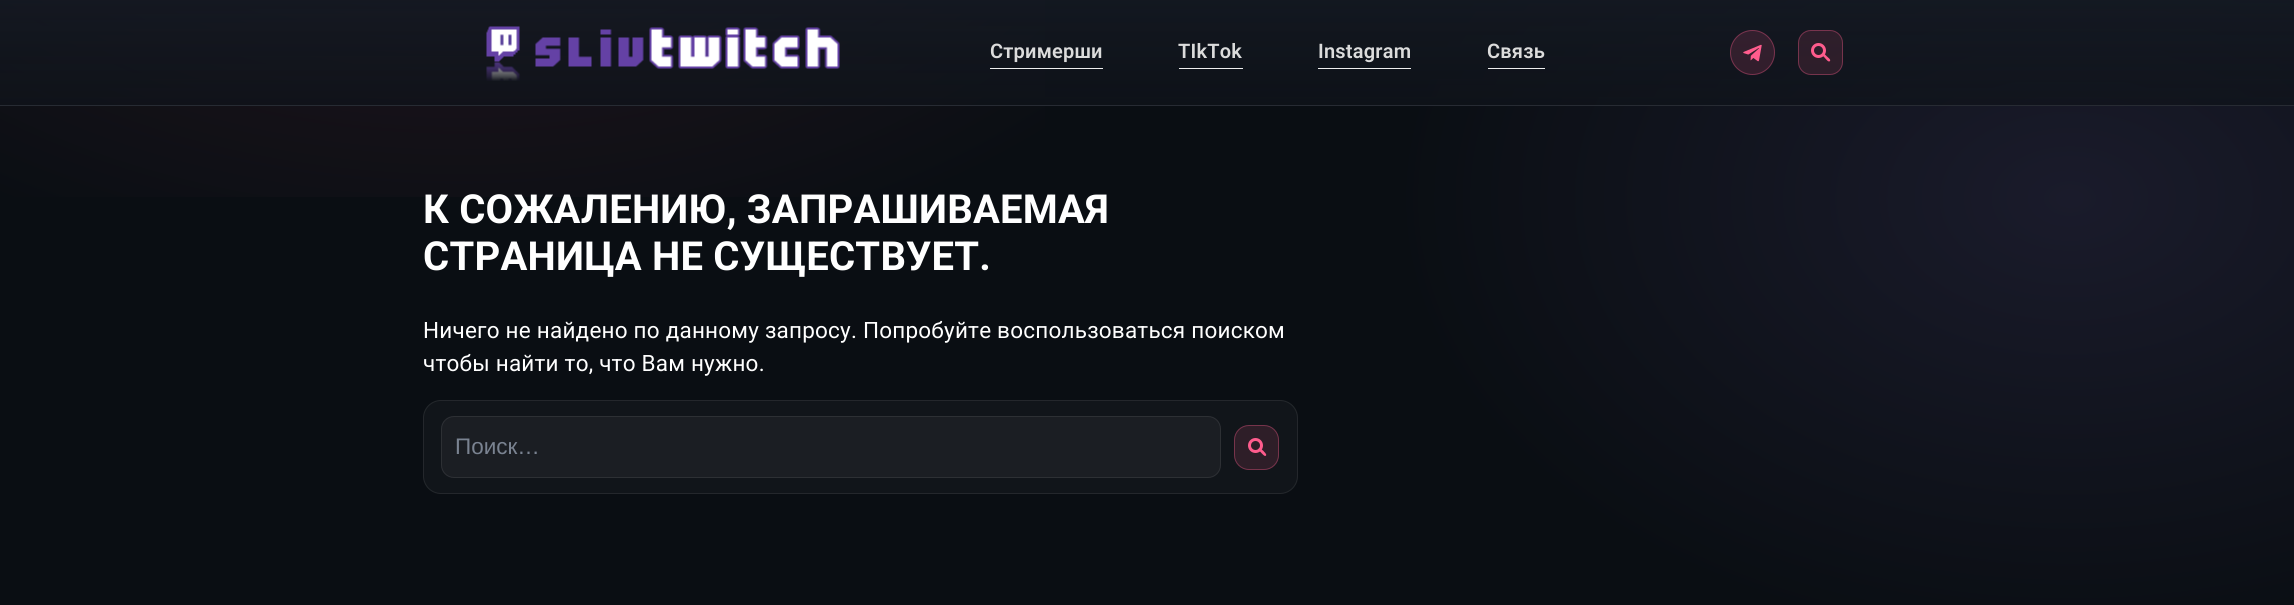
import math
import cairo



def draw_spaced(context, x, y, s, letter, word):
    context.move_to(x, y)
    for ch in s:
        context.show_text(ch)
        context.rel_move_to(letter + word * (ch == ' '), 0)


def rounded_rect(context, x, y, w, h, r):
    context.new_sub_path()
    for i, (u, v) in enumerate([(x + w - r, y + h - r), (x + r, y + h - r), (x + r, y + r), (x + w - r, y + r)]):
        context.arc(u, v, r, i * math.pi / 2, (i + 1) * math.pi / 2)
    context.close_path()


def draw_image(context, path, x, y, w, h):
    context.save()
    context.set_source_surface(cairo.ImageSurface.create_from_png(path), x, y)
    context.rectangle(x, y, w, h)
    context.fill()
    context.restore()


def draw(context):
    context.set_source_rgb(1, 1, 1)
    context.paint()
    gradient = cairo.RadialGradient(0, 0, 0, 0, 0, 1)
    gradient.set_matrix(cairo.Matrix(1 / 1125, 0, 0, 1 / 750, -1 * 2066 / 1125, -1 * 199 / 750))
    gradient.add_color_stop_rgba(0, 26 / 255, 27 / 255, 43 / 255, 1)
    gradient.add_color_stop_rgba(0.6, 10 / 255, 14 / 255, 19 / 255, 1)
    context.set_source(gradient)
    context.rectangle(0, 0, 2294, 605)
    context.fill()
    gradient = cairo.RadialGradient(0, 0, 0, 0, 0, 1)
    gradient.set_matrix(cairo.Matrix(1 / 1500, 0, 0, 1 / 875, -1 * 459 / 1500, -1 * -198 / 875))
    gradient.add_color_stop_rgba(0, 1, 92 / 255, 141 / 255, 0.12)
    gradient.add_color_stop_rgba(0.55, 1, 92 / 255, 141 / 255, 0)
    context.set_source(gradient)
    context.rectangle(0, 0, 1045, 197)
    context.fill()
    gradient = cairo.LinearGradient(1148, 0, 1148, 105)
    gradient.add_color_stop_rgba(0, 20 / 255, 25 / 255, 34 / 255, 0.88)
    gradient.add_color_stop_rgba(1, 15 / 255, 19 / 255, 26 / 255, 0.74)
    context.set_source(gradient)
    context.rectangle(0, 0, 2294, 105)
    context.fill()
    context.set_source_rgb(39 / 255, 43 / 255, 51 / 255)
    context.rectangle(0, 105, 2294, 1)
    context.fill()
    draw_image(context, "images/1.png", 486, 26, 354, 55)
    context.set_source_rgb(238 / 255, 238 / 255, 238 / 255)
    context.rectangle(990, 68, 113, 1)
    context.fill()
    context.rectangle(1179, 68, 64, 1)
    context.fill()
    context.rectangle(1318, 68, 93, 1)
    context.fill()
    context.rectangle(1488, 68, 57, 1)
    context.fill()
    context.set_source_rgba(1, 92 / 255, 141 / 255, 0.14)
    context.arc(1752.5, 52.5, 22.5, 0, 2 * math.pi)
    context.fill()
    context.arc(1752.5, 52.5, 22, 0, 2 * math.pi)
    context.set_source_rgba(1, 92 / 255, 141 / 255, 0.35)
    context.set_line_width(1)
    context.stroke()
    draw_image(context, "images/2.png", 1743, 44, 19, 18)
    context.set_source_rgba(1, 92 / 255, 141 / 255, 0.12)
    rounded_rect(context, 1798, 30, 45, 45, 13)
    context.fill()
    rounded_rect(context, 1798.5, 30.5, 44, 44, 12.5)
    context.set_source_rgba(1, 92 / 255, 141 / 255, 0.35)
    context.stroke()
    context.arc(1818.5, 50.5, 6, 0, 2 * math.pi)
    context.set_source_rgb(1, 92 / 255, 141 / 255)
    context.set_line_width(3)
    context.stroke()
    context.new_path()
    context.move_to(1824.5, 54)
    context.line_to(1827, 56.5)
    context.curve_to(1828, 57.5, 1831, 59.5, 1830, 61)
    context.curve_to(1828.5, 63, 1825.5, 58.5, 1824.5, 57.5)
    context.line_to(1822.5, 55.5)
    context.curve_to(1822, 54, 1823.5, 53, 1824.5, 54)
    context.close_path()
    context.fill()
    context.set_source_rgb(17 / 255, 21 / 255, 26 / 255)
    rounded_rect(context, 423, 400, 875, 94, 18)
    context.fill()
    rounded_rect(context, 423.5, 400.5, 874, 93, 17.5)
    context.set_source_rgba(1, 1, 1, 0.08)
    context.set_line_width(1)
    context.stroke()
    context.set_source_rgb(27 / 255, 30 / 255, 35 / 255)
    rounded_rect(context, 441, 416, 780, 62, 13)
    context.fill()
    rounded_rect(context, 441.5, 416.5, 779, 61, 12.5)
    context.set_source_rgba(1, 1, 1, 0.08)
    context.stroke()
    context.set_source_rgb(46 / 255, 30 / 255, 40 / 255)
    rounded_rect(context, 1234, 425, 45, 45, 15)
    context.fill()
    rounded_rect(context, 1234.5, 425.5, 44, 44, 14.5)
    context.set_source_rgba(1, 92 / 255, 141 / 255, 0.35)
    context.stroke()
    context.arc(1255.5, 445.5, 6, 0, 2 * math.pi)
    context.set_source_rgb(1, 92 / 255, 141 / 255)
    context.set_line_width(3)
    context.stroke()
    context.new_path()
    context.move_to(1260.5, 448.5)
    context.line_to(1263.5, 451)
    context.curve_to(1264, 452, 1267, 454, 1266, 455.5)
    context.curve_to(1265, 457.5, 1261.5, 453, 1260.5, 452)
    context.line_to(1258.5, 450)
    context.curve_to(1258, 448.5, 1260, 447.5, 1260.5, 448.5)
    context.close_path()
    context.fill()
    context.select_font_face("Roboto SemiBold")
    context.set_font_size(20)
    context.set_source_rgb(220 / 255, 220 / 255, 220 / 255)
    draw_spaced(context, 990, 58, "Стримерши", 0.22, 0)
    draw_spaced(context, 1178, 58, "TIkTok", 0.22, 0)
    draw_spaced(context, 1318, 58, "Instagram", 0.22, 0)
    draw_spaced(context, 1487, 58, "Связь", 0.22, 0)
    context.select_font_face("Roboto", cairo.FontSlant.NORMAL, cairo.FontWeight.BOLD)
    context.set_font_size(40)
    context.set_source_rgb(1, 1, 1)
    draw_spaced(context, 423, 223, "К СОЖАЛЕНИЮ, ЗАПРАШИВАЕМАЯ", 0.22, 0)
    draw_spaced(context, 423, 270, "СТРАНИЦА НЕ СУЩЕСТВУЕТ.", 0.22, 0)
    context.select_font_face("Roboto")
    context.set_font_size(22.5)
    draw_spaced(context, 423, 338, "Ничего не найдено по данному запросу. Попробуйте воспользоваться поиском", 0.22, 0)
    draw_spaced(context, 423, 371, "чтобы найти то, что Вам нужно.", 0.22, 0)
    context.select_font_face("Liberation Sans")
    context.set_source_rgb(122 / 255, 131 / 255, 145 / 255)
    context.move_to(455, 454)
    context.show_text("Поиск…")


surface = cairo.ImageSurface(cairo.Format.RGB24, 2294, 605)
context = cairo.Context(surface)
options = cairo.FontOptions()
options.set_hint_metrics(cairo.HintMetrics.OFF)
options.set_hint_style(cairo.HintStyle.NONE)
context.set_font_options(options)
context.set_miter_limit(4)
draw(context)
surface.write_to_png("out.png")
